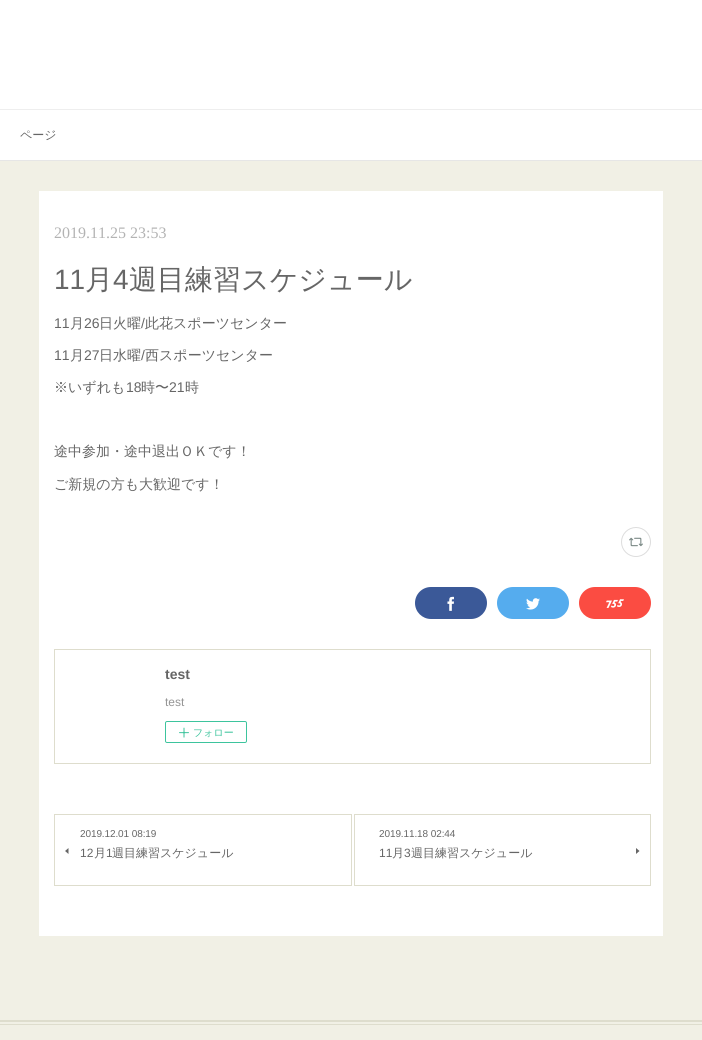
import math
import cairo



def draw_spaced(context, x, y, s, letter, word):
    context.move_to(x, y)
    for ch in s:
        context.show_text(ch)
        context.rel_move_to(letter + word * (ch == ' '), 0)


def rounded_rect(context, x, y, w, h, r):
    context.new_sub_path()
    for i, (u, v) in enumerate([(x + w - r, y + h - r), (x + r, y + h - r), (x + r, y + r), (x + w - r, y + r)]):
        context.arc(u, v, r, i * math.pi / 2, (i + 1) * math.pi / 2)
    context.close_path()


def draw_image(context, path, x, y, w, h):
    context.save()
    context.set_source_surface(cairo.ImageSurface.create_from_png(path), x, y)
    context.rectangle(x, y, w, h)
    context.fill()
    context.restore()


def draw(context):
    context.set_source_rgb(241 / 255, 240 / 255, 229 / 255)
    context.paint()
    context.set_source_rgb(1, 1, 1)
    context.rectangle(0, 0, 702, 109)
    context.fill()
    context.set_source_rgb(238 / 255, 238 / 255, 238 / 255)
    context.rectangle(0, 109, 702, 1)
    context.fill()
    context.set_source_rgb(1, 1, 1)
    context.rectangle(0, 110, 702, 50)
    context.fill()
    context.set_source_rgb(230 / 255, 230 / 255, 230 / 255)
    context.rectangle(0, 160, 702, 1)
    context.fill()
    context.set_source_rgb(1, 1, 1)
    context.rectangle(39, 191, 624, 745)
    context.fill()
    context.arc(636, 542, 14.5, 0, 2 * math.pi)
    context.set_source_rgb(221 / 255, 221 / 255, 221 / 255)
    context.set_line_width(1)
    context.stroke()
    draw_image(context, "images/1.png", 629, 537, 14, 10)
    context.set_source_rgb(59 / 255, 89 / 255, 152 / 255)
    rounded_rect(context, 415, 587, 72, 32, 16)
    context.fill()
    draw_image(context, "images/2.png", 447, 596, 7, 15)
    context.set_source_rgb(85 / 255, 172 / 255, 238 / 255)
    rounded_rect(context, 497, 587, 72, 32, 16)
    context.fill()
    draw_image(context, "images/3.png", 526, 598, 14, 12)
    context.set_source_rgb(251 / 255, 76 / 255, 66 / 255)
    rounded_rect(context, 579, 587, 72, 32, 16)
    context.fill()
    draw_image(context, "images/4.png", 606, 599, 18, 9)
    context.rectangle(54.5, 649.5, 596, 114)
    context.set_source_rgb(222 / 255, 221 / 255, 205 / 255)
    context.stroke()
    rounded_rect(context, 165.5, 721.5, 81, 21, 1.5)
    context.set_source_rgb(61 / 255, 196 / 255, 157 / 255)
    context.stroke()
    draw_image(context, "images/5.png", 179, 727, 10, 11)
    context.rectangle(54.5, 814.5, 297, 71)
    context.set_source_rgb(222 / 255, 221 / 255, 205 / 255)
    context.stroke()
    context.set_source_rgb(102 / 255, 102 / 255, 102 / 255)
    context.new_path()
    context.move_to(68.5, 854)
    context.line_to(68.5, 848)
    context.line_to(65, 851)
    context.close_path()
    context.fill()
    context.rectangle(354.5, 814.5, 296, 71)
    context.set_source_rgb(222 / 255, 221 / 255, 205 / 255)
    context.stroke()
    context.set_source_rgb(102 / 255, 102 / 255, 102 / 255)
    context.new_path()
    context.move_to(636, 848)
    context.line_to(636, 854)
    context.line_to(639.5, 851)
    context.close_path()
    context.fill()
    context.set_source_rgb(222 / 255, 221 / 255, 205 / 255)
    context.rectangle(0, 1020, 702, 2)
    context.fill()
    context.rectangle(0, 1024, 702, 1)
    context.fill()
    context.select_font_face("WenQuanYi Zen Hei Medium")
    context.set_font_size(12)
    context.set_source_rgb(102 / 255, 102 / 255, 102 / 255)
    context.move_to(20, 139)
    context.show_text("ページ")
    context.select_font_face("Liberation Serif")
    context.set_font_size(16)
    context.set_source_rgb(179 / 255, 179 / 255, 179 / 255)
    context.move_to(54, 238)
    context.show_text("2019.11.25 23:53")
    context.select_font_face("Liberation Sans")
    context.set_font_size(28)
    context.set_source_rgb(102 / 255, 102 / 255, 102 / 255)
    context.move_to(54, 289)
    context.show_text("11")
    context.select_font_face("WenQuanYi Zen Hei Medium")
    context.move_to(85, 289)
    context.show_text("月")
    context.select_font_face("Liberation Sans")
    context.move_to(113, 289)
    context.show_text("4")
    context.select_font_face("WenQuanYi Zen Hei Medium")
    context.move_to(129, 289)
    context.show_text("週目練習スケジュール")
    context.select_font_face("Liberation Sans")
    context.set_font_size(14)
    context.move_to(54, 328)
    context.show_text("11")
    context.select_font_face("WenQuanYi Zen Hei Medium")
    context.move_to(70, 328)
    context.show_text("月")
    context.select_font_face("Liberation Sans")
    context.move_to(84, 328)
    context.show_text("26")
    context.select_font_face("WenQuanYi Zen Hei Medium")
    context.move_to(99, 328)
    context.show_text("日火曜")
    context.select_font_face("Liberation Sans")
    context.move_to(141, 328)
    context.show_text("/")
    context.select_font_face("WenQuanYi Zen Hei Medium")
    context.move_to(145, 328)
    context.show_text("此花スポーツセンター")
    context.select_font_face("Liberation Sans")
    context.move_to(54, 360)
    context.show_text("11")
    context.select_font_face("WenQuanYi Zen Hei Medium")
    context.move_to(70, 360)
    context.show_text("月")
    context.select_font_face("Liberation Sans")
    context.move_to(84, 360)
    context.show_text("27")
    context.select_font_face("WenQuanYi Zen Hei Medium")
    context.move_to(99, 360)
    context.show_text("日水曜")
    context.select_font_face("Liberation Sans")
    context.move_to(141, 360)
    context.show_text("/")
    context.select_font_face("WenQuanYi Zen Hei Medium")
    context.move_to(145, 360)
    context.show_text("西スポーツセンター")
    context.move_to(54, 392)
    context.show_text("※いずれも")
    context.select_font_face("Liberation Sans")
    context.move_to(126, 392)
    context.show_text("18")
    context.select_font_face("WenQuanYi Zen Hei Medium")
    context.move_to(141, 392)
    context.show_text("時〜")
    context.select_font_face("Liberation Sans")
    context.move_to(169, 392)
    context.show_text("21")
    context.select_font_face("WenQuanYi Zen Hei Medium")
    context.move_to(185, 392)
    context.show_text("時")
    context.move_to(54, 456)
    context.show_text("途中参加・途中退出ＯＫです！")
    context.move_to(54, 489)
    context.show_text("ご新規の方も大歓迎です！")
    context.select_font_face("Liberation Sans", cairo.FontSlant.NORMAL, cairo.FontWeight.BOLD)
    context.move_to(165, 679)
    context.show_text("test")
    context.select_font_face("Liberation Sans")
    context.set_font_size(12)
    context.set_source_rgb(148 / 255, 148 / 255, 148 / 255)
    context.move_to(165, 706)
    context.show_text("test")
    context.select_font_face("WenQuanYi Zen Hei Medium")
    context.set_font_size(10)
    context.set_source_rgb(61 / 255, 196 / 255, 157 / 255)
    context.move_to(193, 736)
    context.show_text("フォロー")
    context.select_font_face("Liberation Sans")
    context.set_source_rgb(102 / 255, 102 / 255, 102 / 255)
    draw_spaced(context, 80, 837, "2019.12.01 08:19", -0.1, 0)
    context.set_font_size(12)
    context.move_to(80, 857)
    context.show_text("12")
    context.select_font_face("WenQuanYi Zen Hei Medium")
    context.move_to(94, 857)
    context.show_text("月")
    context.select_font_face("Liberation Sans")
    context.move_to(106, 857)
    context.show_text("1")
    context.select_font_face("WenQuanYi Zen Hei Medium")
    context.move_to(112, 857)
    context.show_text("週目練習スケジュール")
    context.select_font_face("Liberation Sans")
    context.set_font_size(10)
    draw_spaced(context, 379, 837, "2019.11.18 02:44", -0.1, 0)
    context.set_font_size(12)
    context.move_to(379, 857)
    context.show_text("11")
    context.select_font_face("WenQuanYi Zen Hei Medium")
    context.move_to(392, 857)
    context.show_text("月")
    context.select_font_face("Liberation Sans")
    context.move_to(404, 857)
    context.show_text("3")
    context.select_font_face("WenQuanYi Zen Hei Medium")
    context.move_to(411, 857)
    context.show_text("週目練習スケジュール")


surface = cairo.ImageSurface(cairo.Format.RGB24, 702, 1040)
context = cairo.Context(surface)
options = cairo.FontOptions()
options.set_hint_metrics(cairo.HintMetrics.OFF)
options.set_hint_style(cairo.HintStyle.NONE)
context.set_font_options(options)
context.set_miter_limit(4)
draw(context)
surface.write_to_png("out.png")
